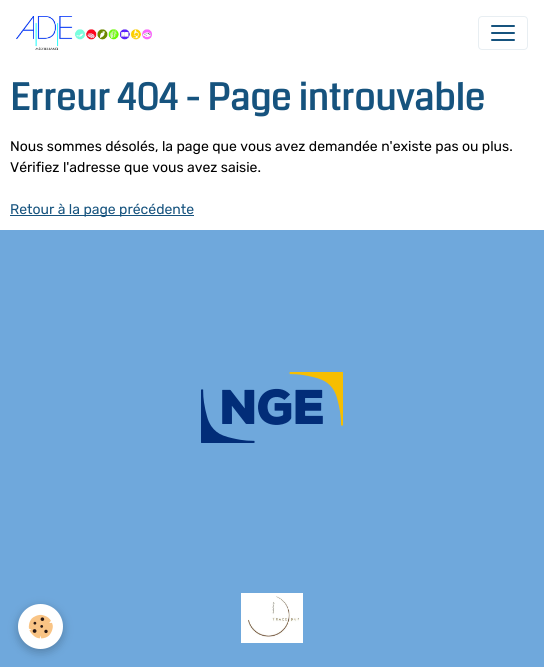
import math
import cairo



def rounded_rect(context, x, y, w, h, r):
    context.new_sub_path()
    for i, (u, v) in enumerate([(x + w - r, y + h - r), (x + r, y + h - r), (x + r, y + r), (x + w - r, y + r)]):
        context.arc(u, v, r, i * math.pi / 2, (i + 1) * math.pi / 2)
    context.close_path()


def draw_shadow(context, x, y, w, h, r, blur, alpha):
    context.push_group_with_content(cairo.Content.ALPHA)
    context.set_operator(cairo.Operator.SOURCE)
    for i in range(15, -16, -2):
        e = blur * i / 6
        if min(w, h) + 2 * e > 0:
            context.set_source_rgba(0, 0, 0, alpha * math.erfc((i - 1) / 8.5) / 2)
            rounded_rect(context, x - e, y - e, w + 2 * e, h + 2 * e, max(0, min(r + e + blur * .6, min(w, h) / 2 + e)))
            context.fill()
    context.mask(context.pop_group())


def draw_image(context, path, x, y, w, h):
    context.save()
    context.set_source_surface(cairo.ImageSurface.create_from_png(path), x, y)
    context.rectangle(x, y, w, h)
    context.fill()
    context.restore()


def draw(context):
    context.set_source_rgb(1, 1, 1)
    context.paint()
    draw_image(context, "images/1.png", 16, 16, 136, 34)
    rounded_rect(context, 478.5, 16.5, 49, 33, 3.5)
    context.set_source_rgb(232 / 255, 238 / 255, 242 / 255)
    context.set_line_width(1)
    context.stroke()
    context.set_source_rgb(22 / 255, 83 / 255, 126 / 255)
    rounded_rect(context, 491, 25, 24, 2, 1)
    context.fill()
    rounded_rect(context, 491, 32, 24, 2, 1)
    context.fill()
    rounded_rect(context, 491, 39, 24, 2, 1)
    context.fill()
    context.rectangle(10, 215, 184, 1)
    context.fill()
    context.set_source_rgb(111 / 255, 168 / 255, 220 / 255)
    context.rectangle(0, 230, 544, 437)
    context.fill()
    draw_image(context, "images/2.png", 201, 372, 142, 71)
    draw_image(context, "images/3.png", 241, 593, 62, 50)
    context.set_source_rgb(0, 0, 0)
    draw_shadow(context, 18, 607, 45, 45, 22.5, 5, 0.24)
    context.set_source_rgb(1, 1, 1)
    context.arc(40.5, 626.5, 22.5, 0, 2 * math.pi)
    context.fill()
    draw_image(context, "images/4.png", 28, 614, 25, 25)
    context.select_font_face("Coda", cairo.FontSlant.NORMAL, cairo.FontWeight.BOLD)
    context.set_font_size(36.75)
    context.set_source_rgb(22 / 255, 83 / 255, 126 / 255)
    context.move_to(10, 110)
    context.show_text("Erreur 404 - Page introuvable")
    context.select_font_face("Rubik")
    context.set_font_size(14)
    context.set_source_rgb(0, 0, 0)
    context.move_to(10, 151)
    context.show_text("Nous sommes désolés, la page que vous avez demandée n'existe pas ou plus.")
    context.move_to(10, 172)
    context.show_text("Vérifiez l'adresse que vous avez saisie.")
    context.set_source_rgb(22 / 255, 83 / 255, 126 / 255)
    context.move_to(10, 214)
    context.show_text("Retour à la page précédente")


surface = cairo.ImageSurface(cairo.Format.RGB24, 544, 667)
context = cairo.Context(surface)
options = cairo.FontOptions()
options.set_hint_metrics(cairo.HintMetrics.OFF)
options.set_hint_style(cairo.HintStyle.NONE)
context.set_font_options(options)
context.set_miter_limit(4)
draw(context)
surface.write_to_png("out.png")
